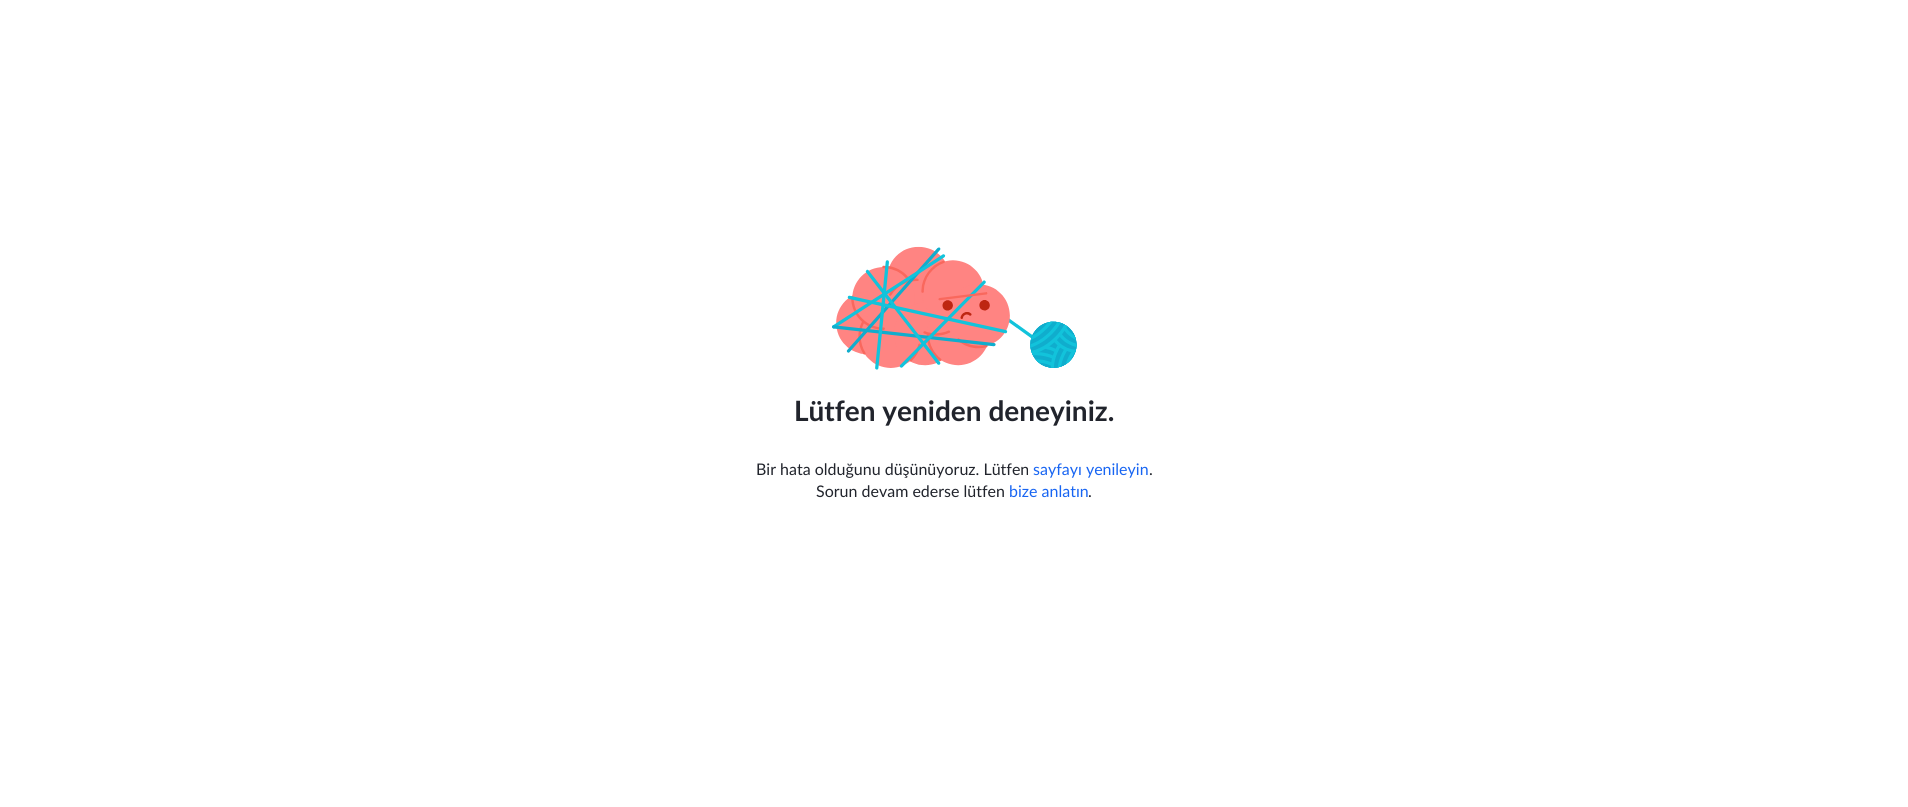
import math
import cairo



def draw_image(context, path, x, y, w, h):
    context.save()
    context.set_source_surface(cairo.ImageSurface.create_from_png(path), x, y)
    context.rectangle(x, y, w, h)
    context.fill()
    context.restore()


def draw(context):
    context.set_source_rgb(1, 1, 1)
    context.paint()
    draw_image(context, "images/1.png", 832, 246, 245, 124)
    context.select_font_face("Lato", cairo.FontSlant.NORMAL, cairo.FontWeight.BOLD)
    context.set_font_size(28)
    context.set_source_rgb(33 / 255, 36 / 255, 44 / 255)
    context.move_to(794, 421)
    context.show_text("Lütfen yeniden deneyiniz.")
    context.select_font_face("Lato")
    context.set_font_size(16)
    context.move_to(756, 475)
    context.show_text("Bir hata olduğunu düşünüyoruz. Lütfen")
    context.set_source_rgb(24 / 255, 101 / 255, 242 / 255)
    context.move_to(1033, 475)
    context.show_text("sayfayı yenileyin")
    context.set_source_rgb(33 / 255, 36 / 255, 44 / 255)
    context.move_to(1149, 475)
    context.show_text(".")
    context.move_to(816, 497)
    context.show_text("Sorun devam ederse lütfen")
    context.set_source_rgb(24 / 255, 101 / 255, 242 / 255)
    context.move_to(1009, 497)
    context.show_text("bize anlatın")
    context.set_source_rgb(33 / 255, 36 / 255, 44 / 255)
    context.move_to(1088, 497)
    context.show_text(".")


surface = cairo.ImageSurface(cairo.Format.RGB24, 1908, 807)
context = cairo.Context(surface)
options = cairo.FontOptions()
options.set_hint_metrics(cairo.HintMetrics.OFF)
options.set_hint_style(cairo.HintStyle.NONE)
context.set_font_options(options)
context.set_miter_limit(4)
draw(context)
surface.write_to_png("out.png")
